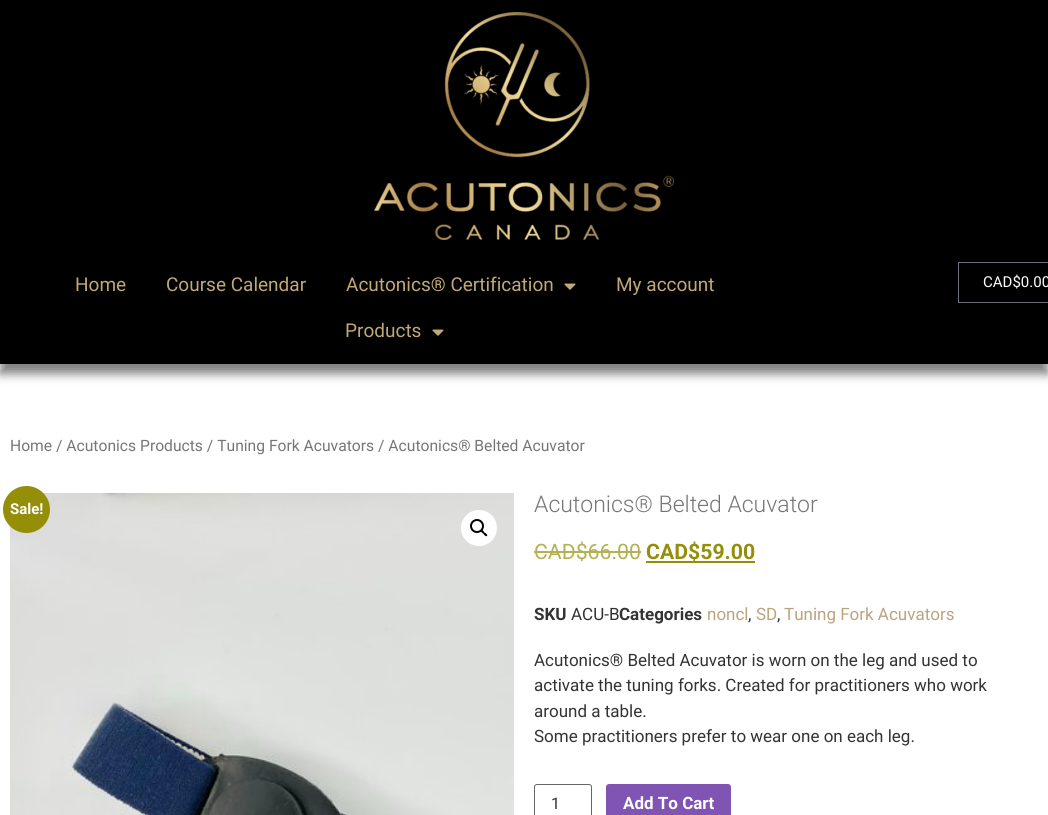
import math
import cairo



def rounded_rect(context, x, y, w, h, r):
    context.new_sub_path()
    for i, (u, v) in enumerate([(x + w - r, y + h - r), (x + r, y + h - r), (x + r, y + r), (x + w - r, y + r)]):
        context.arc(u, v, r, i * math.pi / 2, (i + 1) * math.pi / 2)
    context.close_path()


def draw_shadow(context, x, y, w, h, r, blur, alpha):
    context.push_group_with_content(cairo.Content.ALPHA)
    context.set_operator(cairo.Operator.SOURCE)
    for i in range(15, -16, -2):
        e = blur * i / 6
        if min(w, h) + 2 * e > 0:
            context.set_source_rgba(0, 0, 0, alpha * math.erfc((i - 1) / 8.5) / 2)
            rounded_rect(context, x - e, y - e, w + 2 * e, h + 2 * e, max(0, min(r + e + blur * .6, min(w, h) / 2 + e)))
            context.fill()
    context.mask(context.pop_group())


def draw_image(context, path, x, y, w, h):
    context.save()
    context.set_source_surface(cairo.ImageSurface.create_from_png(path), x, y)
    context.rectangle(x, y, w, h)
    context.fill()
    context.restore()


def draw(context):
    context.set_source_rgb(1, 1, 1)
    context.paint()
    context.set_source_rgb(0, 0, 0)
    draw_shadow(context, 0, 10, 1048, 364, 0, 5, 0.5)
    context.set_source_rgb(0, 0, 0)
    context.rectangle(0, 0, 1048, 364)
    context.fill()
    draw_image(context, "images/1.png", 374, 12, 300, 228)
    draw_image(context, "images/2.png", 564, 283, 12, 7)
    draw_image(context, "images/2.png", 432, 329, 12, 7)
    context.rectangle(958.5, 262.5, 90, 40)
    context.set_source_rgb(105 / 255, 114 / 255, 125 / 255)
    context.set_line_width(1)
    context.stroke()
    draw_image(context, "images/3.png", 10, 493, 504, 322)
    context.set_source_rgb(1, 1, 1)
    context.arc(479, 528, 18, 0, 2 * math.pi)
    context.fill()
    context.arc(477, 526, 6, 0, 2 * math.pi)
    context.set_source_rgb(0, 0, 0)
    context.set_line_width(2)
    context.stroke()
    context.new_path()
    context.move_to(481, 530)
    context.curve_to(482.5, 529, 484, 532, 484.5, 532.5)
    context.curve_to(485.5, 533, 488, 534.5, 487, 536)
    context.curve_to(485.5, 537, 484, 534.5, 483.5, 534)
    context.curve_to(482.5, 533, 480, 531.5, 481, 530)
    context.close_path()
    context.fill()
    context.set_source_rgb(149 / 255, 142 / 255, 9 / 255)
    context.arc(26.5, 509.5, 23.5, 0, 2 * math.pi)
    context.fill()
    context.set_source_rgb(181 / 255, 176 / 255, 83 / 255)
    context.rectangle(534, 551, 107, 2)
    context.fill()
    context.set_source_rgb(149 / 255, 142 / 255, 9 / 255)
    context.rectangle(646, 561, 109, 2)
    context.fill()
    rounded_rect(context, 534.5, 784.5, 57, 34, 2.5)
    context.set_source_rgb(102 / 255, 102 / 255, 102 / 255)
    context.set_line_width(1)
    context.stroke()
    context.set_source_rgb(127 / 255, 84 / 255, 179 / 255)
    rounded_rect(context, 606, 784, 125, 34, 3)
    context.fill()
    context.select_font_face("Roboto")
    context.set_font_size(19)
    context.set_source_rgb(192 / 255, 168 / 255, 119 / 255)
    context.move_to(75, 291)
    context.show_text("Home")
    context.move_to(166, 291)
    context.show_text("Course Calendar")
    context.move_to(346, 291)
    context.show_text("Acutonics® Certification")
    context.move_to(616, 291)
    context.show_text("My account")
    context.move_to(345, 337)
    context.show_text("Products")
    context.set_font_size(15)
    context.set_source_rgb(1, 1, 1)
    context.move_to(983, 287)
    context.show_text("CAD$0.00")
    context.set_font_size(15.65)
    context.set_source_rgb(118 / 255, 118 / 255, 118 / 255)
    context.move_to(10, 451)
    context.show_text("Home / Acutonics Products / Tuning Fork Acuvators / Acutonics® Belted Acuvator")
    context.select_font_face("Roboto", cairo.FontSlant.NORMAL, cairo.FontWeight.BOLD)
    context.set_font_size(15)
    context.set_source_rgb(1, 1, 1)
    context.move_to(10, 514)
    context.show_text("Sale!")
    context.select_font_face("Roboto Light")
    context.set_font_size(23)
    context.set_source_rgb(118 / 255, 118 / 255, 118 / 255)
    context.move_to(534, 512)
    context.show_text("Acutonics® Belted Acuvator")
    context.select_font_face("Roboto")
    context.set_font_size(21.25)
    context.set_source_rgb(181 / 255, 176 / 255, 83 / 255)
    context.move_to(534, 559)
    context.show_text("CAD$66.00")
    context.select_font_face("Roboto", cairo.FontSlant.NORMAL, cairo.FontWeight.BOLD)
    context.set_source_rgb(149 / 255, 142 / 255, 9 / 255)
    context.move_to(646, 559)
    context.show_text("CAD$59.00")
    context.set_font_size(17)
    context.set_source_rgb(51 / 255, 51 / 255, 51 / 255)
    context.move_to(534, 620)
    context.show_text("SKU")
    context.select_font_face("Roboto")
    context.move_to(571, 620)
    context.show_text("ACU-B")
    context.select_font_face("Roboto", cairo.FontSlant.NORMAL, cairo.FontWeight.BOLD)
    context.move_to(619, 620)
    context.show_text("Categories")
    context.select_font_face("Roboto")
    context.set_source_rgb(189 / 255, 162 / 255, 126 / 255)
    context.move_to(707, 620)
    context.show_text("noncl")
    context.set_source_rgb(51 / 255, 51 / 255, 51 / 255)
    context.move_to(748, 620)
    context.show_text(",")
    context.set_source_rgb(189 / 255, 162 / 255, 126 / 255)
    context.move_to(756, 620)
    context.show_text("SD")
    context.set_source_rgb(51 / 255, 51 / 255, 51 / 255)
    context.move_to(777, 620)
    context.show_text(",")
    context.set_source_rgb(189 / 255, 162 / 255, 126 / 255)
    context.move_to(784, 620)
    context.show_text("Tuning Fork Acuvators")
    context.set_source_rgb(51 / 255, 51 / 255, 51 / 255)
    context.move_to(534, 666)
    context.show_text("Acutonics® Belted Acuvator is worn on the leg and used to")
    context.move_to(534, 691)
    context.show_text("activate the tuning forks. Created for practitioners who work")
    context.move_to(534, 717)
    context.show_text("around a table.")
    context.move_to(534, 742)
    context.show_text("Some practitioners prefer to wear one on each leg.")
    context.set_font_size(16)
    context.move_to(551, 809)
    context.show_text("1")
    context.select_font_face("Roboto", cairo.FontSlant.NORMAL, cairo.FontWeight.BOLD)
    context.set_font_size(17)
    context.set_source_rgb(1, 1, 1)
    context.move_to(623, 809)
    context.show_text("Add To Cart")


surface = cairo.ImageSurface(cairo.Format.RGB24, 1048, 815)
context = cairo.Context(surface)
options = cairo.FontOptions()
options.set_hint_metrics(cairo.HintMetrics.OFF)
options.set_hint_style(cairo.HintStyle.NONE)
context.set_font_options(options)
context.set_miter_limit(4)
draw(context)
surface.write_to_png("out.png")
